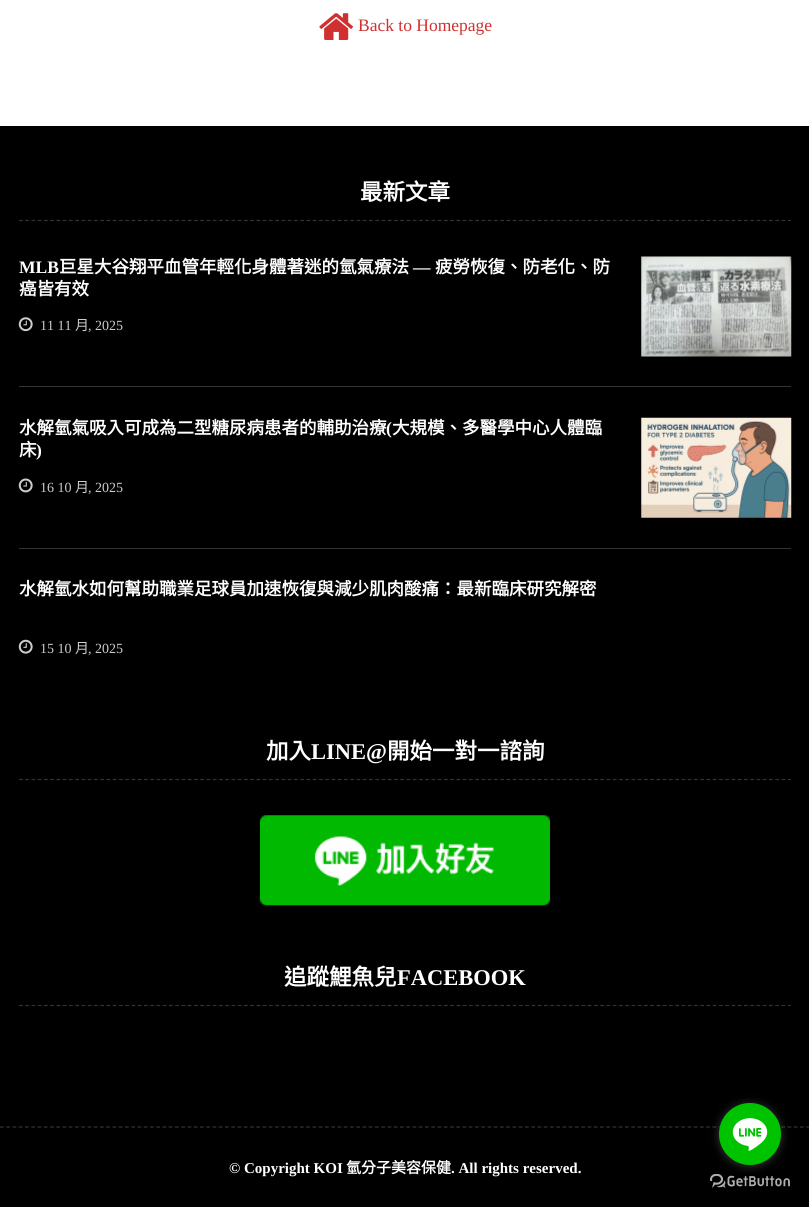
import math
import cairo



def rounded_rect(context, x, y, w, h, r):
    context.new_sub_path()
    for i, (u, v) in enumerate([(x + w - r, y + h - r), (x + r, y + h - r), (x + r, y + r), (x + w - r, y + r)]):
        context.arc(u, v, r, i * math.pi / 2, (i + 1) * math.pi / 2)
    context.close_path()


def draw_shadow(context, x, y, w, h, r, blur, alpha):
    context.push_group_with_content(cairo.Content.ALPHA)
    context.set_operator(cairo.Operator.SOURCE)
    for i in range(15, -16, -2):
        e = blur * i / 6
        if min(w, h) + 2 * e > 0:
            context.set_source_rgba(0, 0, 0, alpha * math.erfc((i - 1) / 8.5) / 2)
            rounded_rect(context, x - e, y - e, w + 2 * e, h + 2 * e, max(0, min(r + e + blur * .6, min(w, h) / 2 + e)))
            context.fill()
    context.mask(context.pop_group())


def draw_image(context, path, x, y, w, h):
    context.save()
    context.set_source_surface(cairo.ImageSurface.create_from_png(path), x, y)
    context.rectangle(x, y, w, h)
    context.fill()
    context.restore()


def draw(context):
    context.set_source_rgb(1, 1, 1)
    context.paint()
    draw_image(context, "images/1.png", 319, 13, 34, 27)
    context.set_source_rgb(0, 0, 0)
    context.rectangle(0, 126, 809, 1081)
    context.fill()
    context.new_path()
    context.move_to(19, 220.5)
    context.line_to(791, 220.5)
    context.set_source_rgb(51 / 255, 51 / 255, 51 / 255)
    context.set_line_width(1.2)
    context.set_dash([3.75, 2.5])
    context.stroke()
    draw_image(context, "images/2.png", 18, 317, 15, 15)
    draw_image(context, "images/3.png", 641, 256, 151, 101)
    context.rectangle(19, 386, 772, 1)
    context.fill()
    draw_image(context, "images/4.png", 18, 478, 15, 15)
    draw_image(context, "images/5.png", 641, 417, 151, 101)
    context.rectangle(19, 548, 772, 1)
    context.fill()
    draw_image(context, "images/6.png", 18, 639, 15, 15)
    context.new_path()
    context.move_to(19, 779.5)
    context.line_to(791, 779.5)
    context.stroke()
    draw_image(context, "images/7.png", 260, 815, 290, 91)
    context.new_path()
    context.move_to(19, 1005.5)
    context.line_to(791, 1005.5)
    context.stroke()
    context.new_path()
    context.move_to(0, 1127)
    context.line_to(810, 1127)
    context.stroke()
    draw_image(context, "images/9.png", 710, 1174, 80, 14)
    context.set_source_rgb(136 / 255, 136 / 255, 136 / 255)
    draw_shadow(context, 719, 1104, 62, 62, 31, 4.5, 0.4)
    context.set_source_rgb(0, 195 / 255, 0)
    context.arc(750, 1134, 31, 0, 2 * math.pi)
    context.fill()
    draw_image(context, "images/8.png", 732, 1118, 36, 33)
    context.select_font_face("Liberation Serif")
    context.set_font_size(17.5)
    context.set_source_rgb(209 / 255, 48 / 255, 48 / 255)
    context.move_to(358, 31)
    context.show_text("Back to Homepage")
    context.select_font_face("Noto Sans CJK TC", cairo.FontSlant.NORMAL, cairo.FontWeight.BOLD)
    context.set_font_size(22.5)
    context.set_source_rgb(1, 1, 1)
    context.move_to(360, 200)
    context.show_text("最新文章")
    context.select_font_face("Liberation Serif", cairo.FontSlant.NORMAL, cairo.FontWeight.BOLD)
    context.set_font_size(17.5)
    context.move_to(19, 273)
    context.show_text("MLB")
    context.select_font_face("Noto Sans CJK TC", cairo.FontSlant.NORMAL, cairo.FontWeight.BOLD)
    context.move_to(59, 273)
    context.show_text("巨星大谷翔平血管年輕化身體著迷的氫氣療法")
    context.select_font_face("Liberation Serif", cairo.FontSlant.NORMAL, cairo.FontWeight.BOLD)
    context.move_to(413, 273)
    context.show_text("—")
    context.select_font_face("Noto Sans CJK TC", cairo.FontSlant.NORMAL, cairo.FontWeight.BOLD)
    context.move_to(435, 273)
    context.show_text("疲勞恢復、防老化、防")
    context.move_to(19, 295)
    context.show_text("癌皆有效")
    context.select_font_face("Liberation Serif")
    context.set_font_size(14)
    context.set_source_rgb(204 / 255, 204 / 255, 204 / 255)
    context.move_to(40, 330)
    context.show_text("11 11")
    context.select_font_face("Noto Sans CJK TC")
    context.move_to(75, 330)
    context.show_text("月")
    context.select_font_face("Liberation Serif")
    context.move_to(88, 330)
    context.show_text(", 2025")
    context.select_font_face("Noto Sans CJK TC", cairo.FontSlant.NORMAL, cairo.FontWeight.BOLD)
    context.set_font_size(17.5)
    context.set_source_rgb(1, 1, 1)
    context.move_to(19, 434)
    context.show_text("水解氫氣吸入可成為二型糖尿病患者的輔助治療")
    context.select_font_face("Liberation Serif", cairo.FontSlant.NORMAL, cairo.FontWeight.BOLD)
    context.move_to(386, 434)
    context.show_text("(")
    context.select_font_face("Noto Sans CJK TC", cairo.FontSlant.NORMAL, cairo.FontWeight.BOLD)
    context.move_to(392, 434)
    context.show_text("大規模、多醫學中心人體臨")
    context.move_to(19, 456)
    context.show_text("床")
    context.select_font_face("Liberation Serif", cairo.FontSlant.NORMAL, cairo.FontWeight.BOLD)
    context.move_to(36, 456)
    context.show_text(")")
    context.select_font_face("Liberation Serif")
    context.set_font_size(14)
    context.set_source_rgb(204 / 255, 204 / 255, 204 / 255)
    context.move_to(40, 492)
    context.show_text("16 10")
    context.select_font_face("Noto Sans CJK TC")
    context.move_to(75, 492)
    context.show_text("月")
    context.select_font_face("Liberation Serif")
    context.move_to(88, 492)
    context.show_text(", 2025")
    context.select_font_face("Noto Sans CJK TC", cairo.FontSlant.NORMAL, cairo.FontWeight.BOLD)
    context.set_font_size(17.5)
    context.set_source_rgb(1, 1, 1)
    context.move_to(19, 595)
    context.show_text("水解氫水如何幫助職業足球員加速恢復與減少肌肉酸痛：最新臨床研究解密")
    context.select_font_face("Liberation Serif")
    context.set_font_size(14)
    context.set_source_rgb(204 / 255, 204 / 255, 204 / 255)
    context.move_to(40, 653)
    context.show_text("15 10")
    context.select_font_face("Noto Sans CJK TC")
    context.move_to(75, 653)
    context.show_text("月")
    context.select_font_face("Liberation Serif")
    context.move_to(88, 653)
    context.show_text(", 2025")
    context.select_font_face("Noto Sans CJK TC", cairo.FontSlant.NORMAL, cairo.FontWeight.BOLD)
    context.set_font_size(22.5)
    context.set_source_rgb(1, 1, 1)
    context.move_to(266, 759)
    context.show_text("加入")
    context.select_font_face("Liberation Serif", cairo.FontSlant.NORMAL, cairo.FontWeight.BOLD)
    context.move_to(311, 759)
    context.show_text("LINE@")
    context.select_font_face("Noto Sans CJK TC", cairo.FontSlant.NORMAL, cairo.FontWeight.BOLD)
    context.move_to(387, 759)
    context.show_text("開始一對一諮詢")
    context.move_to(284, 985)
    context.show_text("追蹤鯉魚兒")
    context.select_font_face("Liberation Serif", cairo.FontSlant.NORMAL, cairo.FontWeight.BOLD)
    context.move_to(397, 985)
    context.show_text("FACEBOOK")
    context.set_font_size(15)
    context.move_to(229, 1173)
    context.show_text("© Copyright KOI")
    context.select_font_face("Noto Sans CJK TC", cairo.FontSlant.NORMAL, cairo.FontWeight.BOLD)
    context.move_to(346, 1173)
    context.show_text("氫分子美容保健")
    context.select_font_face("Liberation Serif", cairo.FontSlant.NORMAL, cairo.FontWeight.BOLD)
    context.move_to(451, 1173)
    context.show_text(". All rights reserved.")


surface = cairo.ImageSurface(cairo.Format.RGB24, 809, 1207)
context = cairo.Context(surface)
options = cairo.FontOptions()
options.set_hint_metrics(cairo.HintMetrics.OFF)
options.set_hint_style(cairo.HintStyle.NONE)
context.set_font_options(options)
context.set_miter_limit(4)
draw(context)
surface.write_to_png("out.png")
